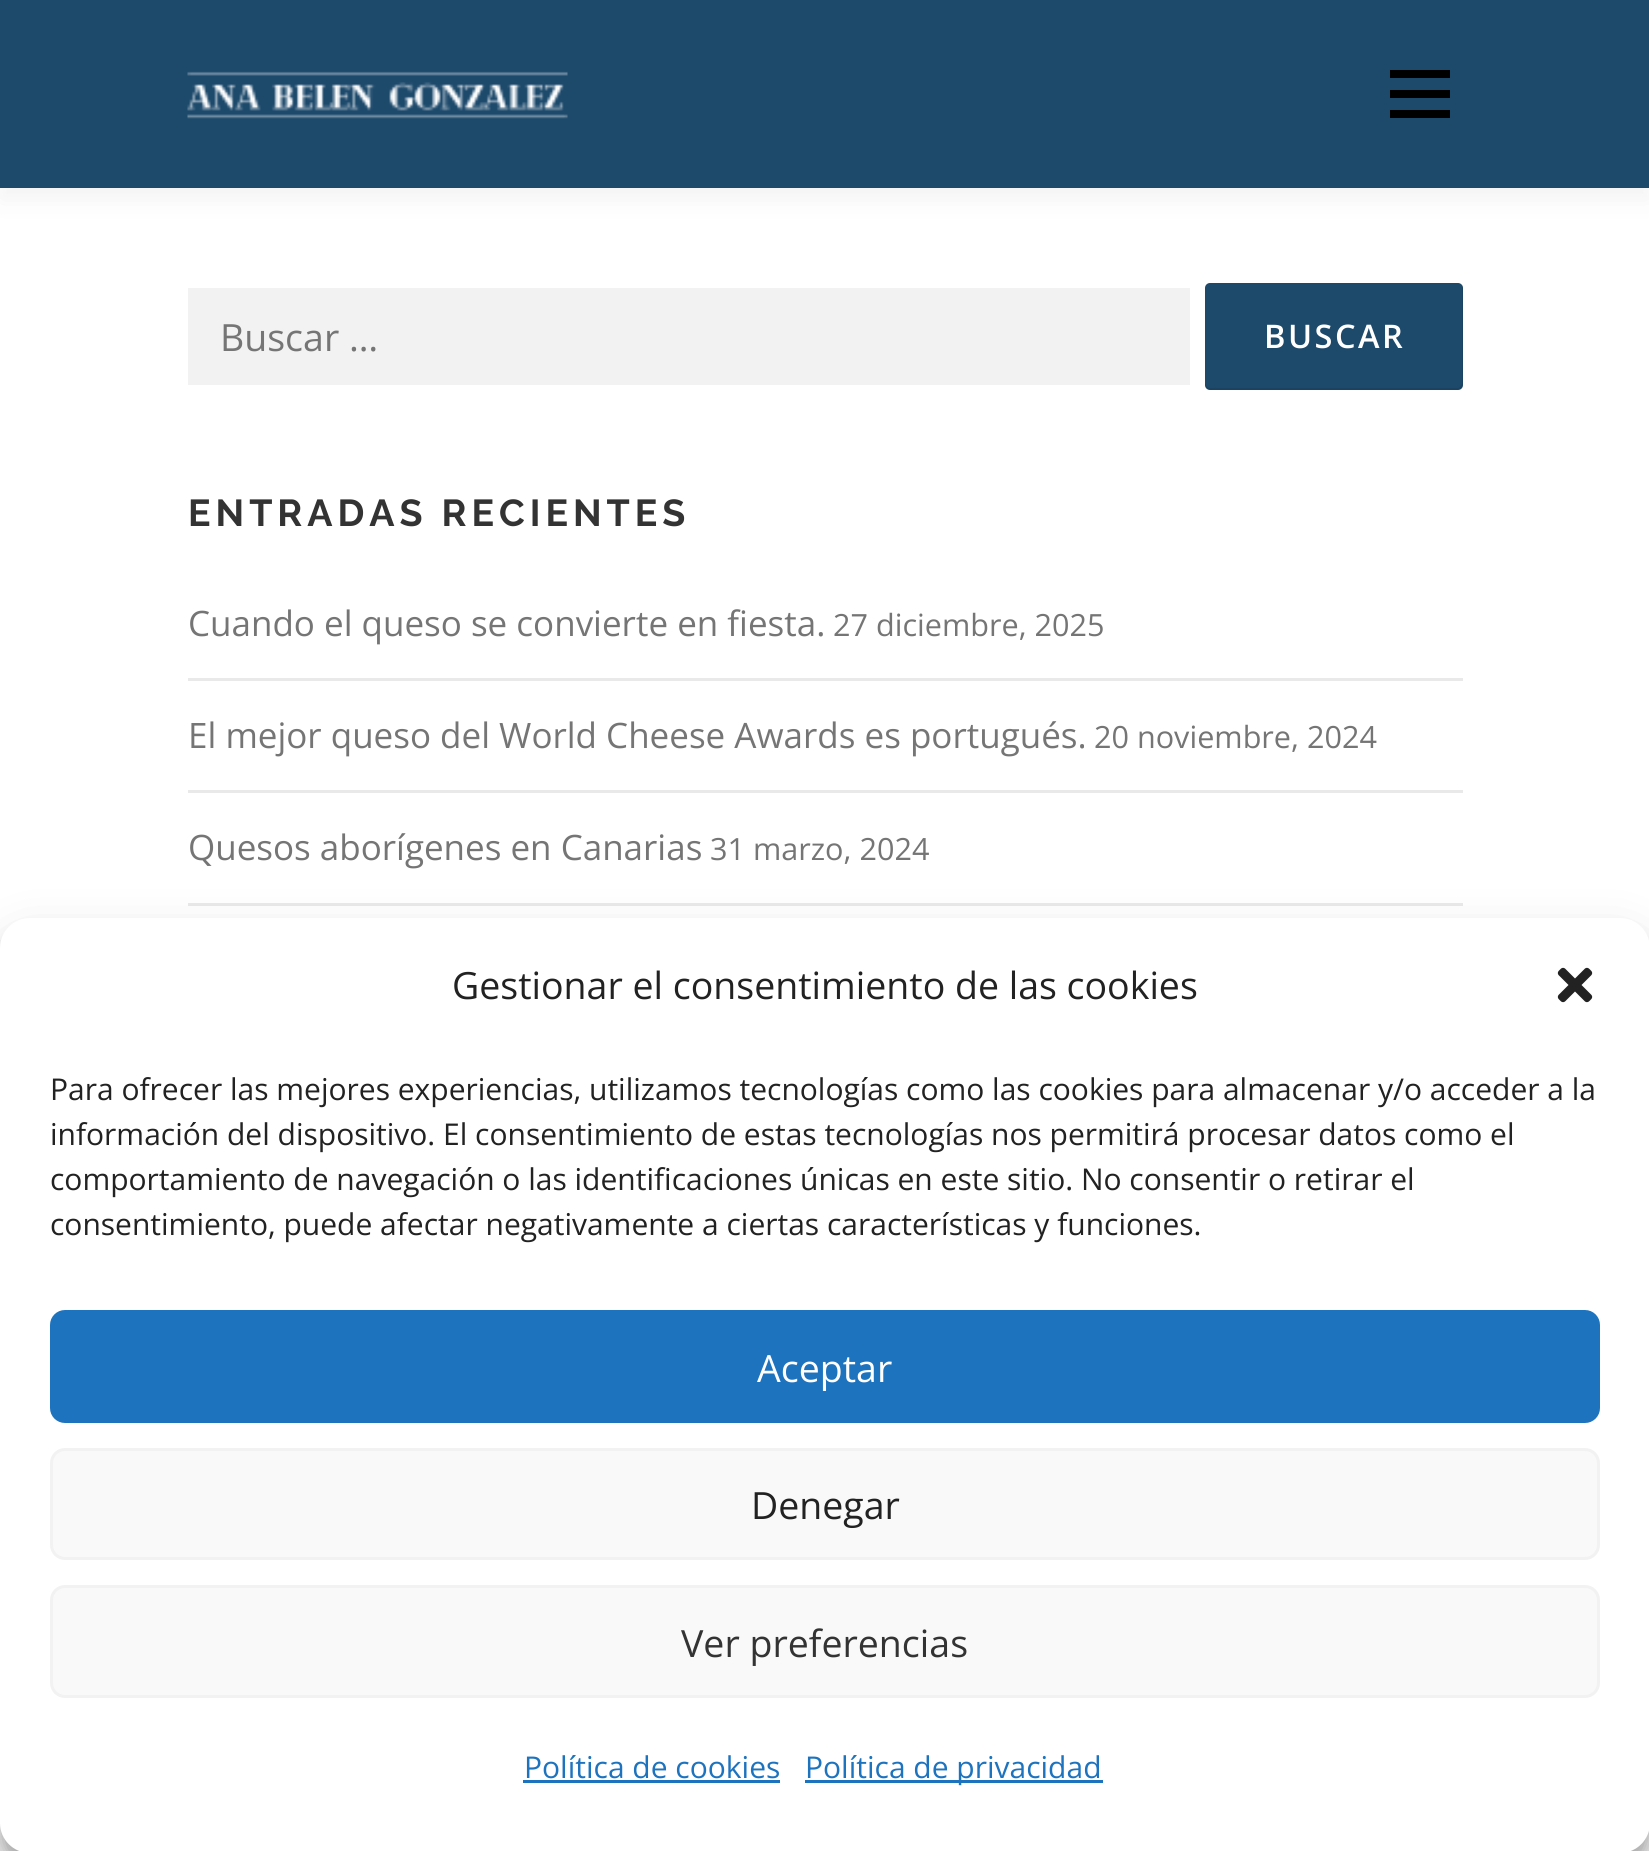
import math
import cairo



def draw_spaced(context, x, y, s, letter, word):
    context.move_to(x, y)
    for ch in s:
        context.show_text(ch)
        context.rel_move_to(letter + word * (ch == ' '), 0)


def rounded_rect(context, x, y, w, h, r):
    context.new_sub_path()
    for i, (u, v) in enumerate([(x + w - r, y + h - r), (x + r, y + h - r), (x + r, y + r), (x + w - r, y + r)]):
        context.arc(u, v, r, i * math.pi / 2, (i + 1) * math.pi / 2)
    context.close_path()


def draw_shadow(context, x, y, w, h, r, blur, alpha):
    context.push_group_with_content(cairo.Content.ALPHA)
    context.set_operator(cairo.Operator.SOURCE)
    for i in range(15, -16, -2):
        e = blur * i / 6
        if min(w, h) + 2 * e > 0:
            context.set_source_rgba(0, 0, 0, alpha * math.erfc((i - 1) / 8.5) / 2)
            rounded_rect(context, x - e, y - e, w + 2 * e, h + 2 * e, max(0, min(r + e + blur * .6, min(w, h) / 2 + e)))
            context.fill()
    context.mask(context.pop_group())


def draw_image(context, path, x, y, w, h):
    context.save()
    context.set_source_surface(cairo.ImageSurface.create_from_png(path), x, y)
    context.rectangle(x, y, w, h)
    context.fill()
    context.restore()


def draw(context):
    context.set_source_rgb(1, 1, 1)
    context.paint()
    context.set_source_rgb(50 / 255, 50 / 255, 50 / 255)
    draw_shadow(context, 0, 13, 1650, 187, 0, 12.5, 0.06)
    context.set_source_rgb(29 / 255, 73 / 255, 107 / 255)
    context.rectangle(0, 0, 1649, 188)
    context.fill()
    draw_image(context, "images/1.png", 187, 71, 381, 48)
    context.set_source_rgb(0, 0, 0)
    context.rectangle(1390, 90, 60, 8)
    context.fill()
    context.rectangle(1390, 70, 60, 8)
    context.fill()
    context.rectangle(1390, 110, 60, 8)
    context.fill()
    context.set_source_rgb(242 / 255, 242 / 255, 242 / 255)
    context.rectangle(188, 288, 1002, 97)
    context.fill()
    context.set_source_rgb(29 / 255, 73 / 255, 107 / 255)
    rounded_rect(context, 1205, 283, 258, 107, 5)
    context.fill()
    context.set_source_rgba(0, 0, 0, 0.1)
    context.new_path()
    context.move_to(1205, 382)
    context.line_to(1205, 385)
    context.curve_to(1205, 388, 1207, 390, 1210, 390)
    context.line_to(1458, 390)
    context.curve_to(1461, 390, 1463, 388, 1463, 385)
    context.line_to(1463, 288)
    context.curve_to(1463, 287, 1463, 286, 1462, 285)
    context.line_to(1462, 382)
    context.curve_to(1462, 385, 1460, 388, 1458, 388)
    context.line_to(1210, 388)
    context.curve_to(1207, 388, 1205, 385, 1205, 382)
    context.close_path()
    context.fill()
    context.set_source_rgb(233 / 255, 233 / 255, 233 / 255)
    context.rectangle(188, 678, 1275, 3)
    context.fill()
    context.rectangle(188, 790, 1275, 3)
    context.fill()
    context.rectangle(188, 903, 1275, 3)
    context.fill()
    context.set_source_rgb(0, 0, 0)
    draw_shadow(context, 0, 933, 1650, 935, 30, 7.5, 0.23)
    draw_shadow(context, 0, 943, 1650, 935, 30, 25, 0.19)
    context.set_source_rgb(1, 1, 1)
    rounded_rect(context, 0, 918, 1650, 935, 30)
    context.fill()
    draw_image(context, "images/2.png", 1557, 967, 36, 36)
    context.set_source_rgb(30 / 255, 115 / 255, 190 / 255)
    rounded_rect(context, 51.5, 1311.5, 1547, 110, 13.5)
    context.fill_preserve()
    context.set_line_width(3)
    context.stroke()
    context.set_source_rgb(249 / 255, 249 / 255, 249 / 255)
    rounded_rect(context, 51.5, 1449.5, 1547, 109, 13.5)
    context.fill_preserve()
    context.set_source_rgb(242 / 255, 242 / 255, 242 / 255)
    context.stroke()
    context.set_source_rgb(249 / 255, 249 / 255, 249 / 255)
    rounded_rect(context, 51.5, 1586.5, 1547, 110, 13.5)
    context.fill_preserve()
    context.set_source_rgb(242 / 255, 242 / 255, 242 / 255)
    context.stroke()
    context.set_source_rgb(30 / 255, 115 / 255, 190 / 255)
    context.rectangle(523, 1780, 257, 3)
    context.fill()
    context.rectangle(805, 1780, 298, 3)
    context.fill()
    context.select_font_face("Open Sans")
    context.set_font_size(37.5)
    context.set_source_rgb(117 / 255, 117 / 255, 117 / 255)
    context.move_to(220, 351)
    context.show_text("Buscar …")
    context.select_font_face("Open Sans SemiBold")
    context.set_font_size(32.5)
    context.set_source_rgb(1, 1, 1)
    draw_spaced(context, 1264, 348, "BUSCAR", 2.5, 0)
    context.select_font_face("Raleway", cairo.FontSlant.NORMAL, cairo.FontWeight.BOLD)
    context.set_font_size(37.5)
    context.set_source_rgb(51 / 255, 51 / 255, 51 / 255)
    draw_spaced(context, 188, 526, "ENTRADAS RECIENTES", 5, 0)
    context.select_font_face("Open Sans")
    context.set_font_size(35)
    context.set_source_rgb(117 / 255, 117 / 255, 117 / 255)
    context.move_to(188, 636)
    context.show_text("Cuando el queso se convierte en fiesta.")
    context.set_font_size(30.6)
    context.move_to(833, 636)
    context.show_text("27 diciembre, 2025")
    context.set_font_size(35)
    context.move_to(188, 748)
    context.show_text("El mejor queso del World Cheese Awards es portugués.")
    context.set_font_size(30.6)
    context.move_to(1094, 748)
    context.show_text("20 noviembre, 2024")
    context.set_font_size(35)
    context.move_to(188, 860)
    context.show_text("Quesos aborígenes en Canarias")
    context.set_font_size(30.6)
    context.move_to(710, 860)
    context.show_text("31 marzo, 2024")
    context.set_font_size(37.5)
    context.set_source_rgb(34 / 255, 34 / 255, 34 / 255)
    context.move_to(452, 999)
    context.show_text("Gestionar el consentimiento de las cookies")
    context.set_font_size(30)
    context.move_to(50, 1100)
    context.show_text("Para ofrecer las mejores experiencias, utilizamos tecnologías como las cookies para almacenar y/o acceder a la")
    context.move_to(50, 1145)
    context.show_text("información del dispositivo. El consentimiento de estas tecnologías nos permitirá procesar datos como el")
    context.move_to(50, 1190)
    context.show_text("comportamiento de navegación o las identificaciones únicas en este sitio. No consentir o retirar el")
    context.move_to(50, 1235)
    context.show_text("consentimiento, puede afectar negativamente a ciertas características y funciones.")
    context.set_font_size(37.5)
    context.set_source_rgb(1, 1, 1)
    context.move_to(757, 1382)
    context.show_text("Aceptar")
    context.set_source_rgb(34 / 255, 34 / 255, 34 / 255)
    context.move_to(751, 1519)
    context.show_text("Denegar")
    context.set_source_rgb(51 / 255, 51 / 255, 51 / 255)
    context.move_to(681, 1657)
    context.show_text("Ver preferencias")
    context.set_font_size(30)
    context.set_source_rgb(30 / 255, 115 / 255, 190 / 255)
    context.move_to(524, 1778)
    context.show_text("Política de cookies")
    context.move_to(805, 1778)
    context.show_text("Política de privacidad")


surface = cairo.ImageSurface(cairo.Format.RGB24, 1649, 1851)
context = cairo.Context(surface)
options = cairo.FontOptions()
options.set_hint_metrics(cairo.HintMetrics.OFF)
options.set_hint_style(cairo.HintStyle.NONE)
context.set_font_options(options)
context.set_miter_limit(4)
draw(context)
surface.write_to_png("out.png")
